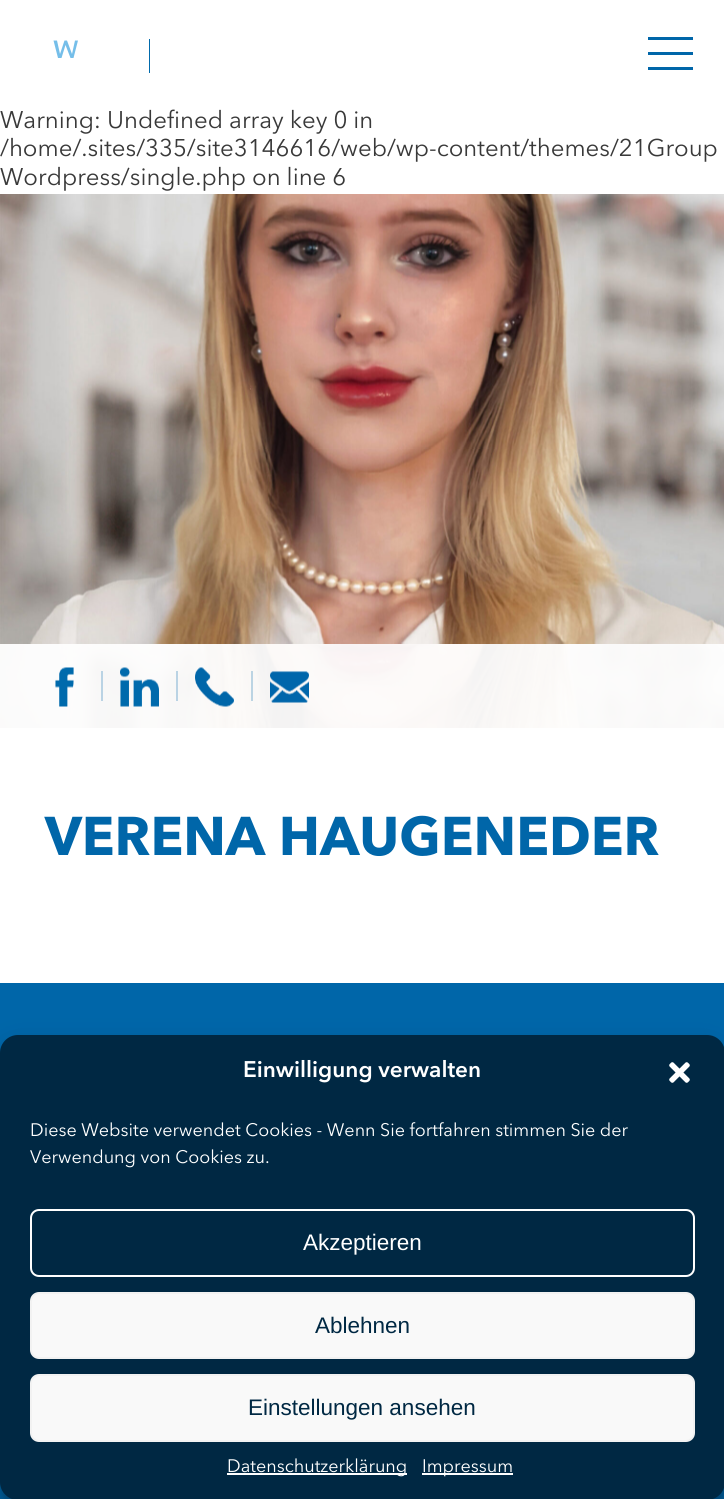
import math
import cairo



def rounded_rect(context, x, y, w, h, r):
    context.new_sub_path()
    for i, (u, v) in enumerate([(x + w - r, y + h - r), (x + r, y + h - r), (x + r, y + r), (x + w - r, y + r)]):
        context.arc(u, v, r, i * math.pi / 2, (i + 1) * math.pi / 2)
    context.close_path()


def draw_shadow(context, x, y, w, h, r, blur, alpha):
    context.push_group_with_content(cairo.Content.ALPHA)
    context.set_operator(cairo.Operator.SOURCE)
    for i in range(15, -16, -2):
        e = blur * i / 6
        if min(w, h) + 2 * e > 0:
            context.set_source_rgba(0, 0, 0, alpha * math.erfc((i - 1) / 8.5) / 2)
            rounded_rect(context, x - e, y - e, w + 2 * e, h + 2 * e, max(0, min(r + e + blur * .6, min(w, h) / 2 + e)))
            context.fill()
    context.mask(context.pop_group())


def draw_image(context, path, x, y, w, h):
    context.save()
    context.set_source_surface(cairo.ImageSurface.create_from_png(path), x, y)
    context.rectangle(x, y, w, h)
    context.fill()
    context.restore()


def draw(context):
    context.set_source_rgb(1, 1, 1)
    context.paint()
    context.set_source_rgb(117 / 255, 190 / 255, 233 / 255)
    context.new_path()
    context.move_to(53.5, 40.5)
    context.line_to(57, 40.5)
    context.line_to(60, 54)
    context.line_to(64.5, 40.5)
    context.line_to(67, 40.5)
    context.line_to(72, 54)
    context.line_to(75, 40.5)
    context.line_to(78, 40.5)
    context.line_to(73.5, 58)
    context.line_to(70.5, 58)
    context.line_to(65.5, 45)
    context.line_to(61.5, 58)
    context.line_to(58, 58)
    context.close_path()
    context.fill()
    context.set_source_rgb(0, 106 / 255, 172 / 255)
    context.rectangle(149, 39, 1, 34)
    context.fill()
    context.set_source_rgb(0, 102 / 255, 169 / 255)
    context.rectangle(648, 37, 45, 3)
    context.fill()
    context.rectangle(648, 52, 45, 3)
    context.fill()
    context.rectangle(648, 67, 45, 3)
    context.fill()
    draw_image(context, "images/1.png", 0, 194, 724, 450)
    draw_image(context, "images/2.png", 0, 644, 724, 84)
    draw_image(context, "images/3.png", 55, 667, 19, 40)
    context.set_source_rgb(186 / 255, 211 / 255, 228 / 255)
    context.rectangle(101, 671, 2, 30)
    context.fill()
    draw_image(context, "images/4.png", 120, 667, 39, 40)
    context.rectangle(176, 671, 2, 30)
    context.fill()
    draw_image(context, "images/5.png", 195, 667, 39, 40)
    context.set_source_rgb(188 / 255, 212 / 255, 227 / 255)
    context.rectangle(251, 671, 2, 30)
    context.fill()
    draw_image(context, "images/6.png", 270, 671, 39, 32)
    context.set_source_rgb(0, 102 / 255, 169 / 255)
    context.rectangle(0, 983, 724, 516)
    context.fill()
    context.set_source_rgb(0, 0, 0)
    draw_shadow(context, 0, 1044, 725, 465, 18, 4.5, 0.23)
    draw_shadow(context, 0, 1050, 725, 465, 18, 15, 0.19)
    context.set_source_rgb(0, 40 / 255, 67 / 255)
    rounded_rect(context, 0, 1035, 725, 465, 18)
    context.fill()
    draw_image(context, "images/7.png", 669, 1062, 21, 21)
    rounded_rect(context, 31, 1210, 663, 66, 8)
    context.set_source_rgb(1, 1, 1)
    context.stroke()
    context.set_source_rgb(249 / 255, 249 / 255, 249 / 255)
    rounded_rect(context, 31, 1293, 663, 65, 8)
    context.fill_preserve()
    context.set_source_rgb(242 / 255, 242 / 255, 242 / 255)
    context.stroke()
    context.set_source_rgb(249 / 255, 249 / 255, 249 / 255)
    rounded_rect(context, 31, 1375, 663, 66, 8)
    context.fill_preserve()
    context.set_source_rgb(242 / 255, 242 / 255, 242 / 255)
    context.stroke()
    context.set_source_rgb(1, 1, 1)
    context.rectangle(227, 1473, 180, 2)
    context.fill()
    context.rectangle(422, 1473, 91, 2)
    context.fill()
    context.select_font_face("Avenir Next")
    context.set_font_size(24)
    context.set_source_rgb(57 / 255, 57 / 255, 57 / 255)
    context.move_to(0, 128)
    context.show_text("Warning: Undefined array key 0 in")
    context.move_to(0, 156)
    context.show_text("/home/.sites/335/site3146616/web/wp-content/themes/21Group")
    context.move_to(0, 185)
    context.show_text("Wordpress/single.php on line 6")
    context.select_font_face("Avenir Next", cairo.FontSlant.NORMAL, cairo.FontWeight.BOLD)
    context.set_font_size(54)
    context.set_source_rgb(0, 102 / 255, 169 / 255)
    context.move_to(45, 855)
    context.show_text("VERENA HAUGENEDER")
    context.select_font_face("Avenir Next SemiBold")
    context.set_font_size(22.5)
    context.set_source_rgb(1, 1, 1)
    context.move_to(243, 1077)
    context.show_text("Einwilligung verwalten")
    context.select_font_face("Avenir Next")
    context.set_font_size(18)
    context.move_to(30, 1136)
    context.show_text("Diese Website verwendet Cookies - Wenn Sie fortfahren stimmen Sie der")
    context.move_to(30, 1163)
    context.show_text("Verwendung von Cookies zu.")
    context.select_font_face("Liberation Sans")
    context.set_font_size(22.5)
    context.move_to(303, 1250)
    context.show_text("Akzeptieren")
    context.set_source_rgb(0, 40 / 255, 67 / 255)
    context.move_to(315, 1333)
    context.show_text("Ablehnen")
    context.move_to(248, 1415)
    context.show_text("Einstellungen ansehen")
    context.select_font_face("Avenir Next")
    context.set_font_size(18)
    context.set_source_rgb(1, 1, 1)
    context.move_to(227, 1472)
    context.show_text("Datenschutzerklärung")
    context.move_to(422, 1472)
    context.show_text("Impressum")


surface = cairo.ImageSurface(cairo.Format.RGB24, 724, 1499)
context = cairo.Context(surface)
options = cairo.FontOptions()
options.set_hint_metrics(cairo.HintMetrics.OFF)
options.set_hint_style(cairo.HintStyle.NONE)
context.set_font_options(options)
context.set_miter_limit(4)
draw(context)
surface.write_to_png("out.png")
